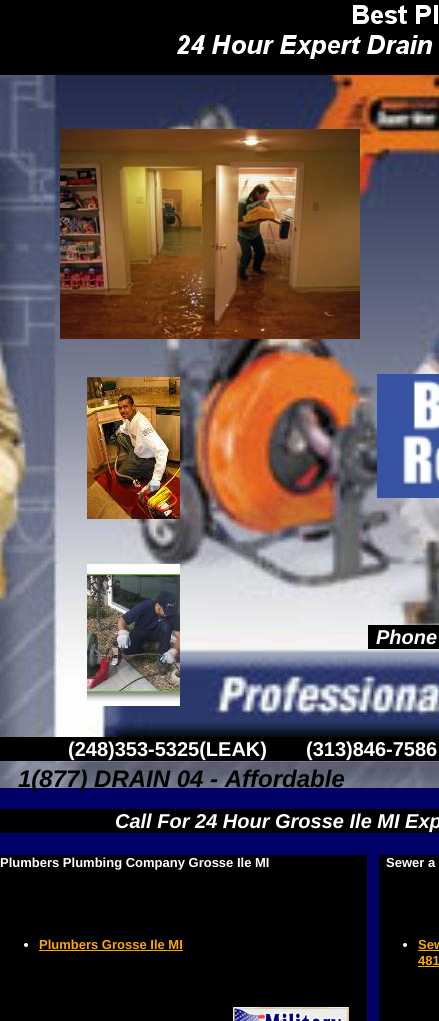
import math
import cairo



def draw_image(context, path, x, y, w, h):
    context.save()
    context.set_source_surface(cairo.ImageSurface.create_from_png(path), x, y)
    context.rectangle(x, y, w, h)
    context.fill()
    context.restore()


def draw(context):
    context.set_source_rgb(0, 0, 102 / 255)
    context.paint()
    draw_image(context, "images/1.png", 0, 0, 439, 75)
    draw_image(context, "images/2.png", 0, 75, 439, 713)
    draw_image(context, "images/3.png", 60, 129, 300, 210)
    draw_image(context, "images/4.png", 87, 377, 93, 142)
    draw_image(context, "images/5.png", 377, 374, 62, 124)
    draw_image(context, "images/6.png", 87, 564, 93, 142)
    context.set_source_rgb(0, 0, 0)
    context.rectangle(368, 625, 71, 24)
    context.fill()
    context.rectangle(0, 737, 439, 24)
    context.fill()
    context.rectangle(0, 809, 439, 24)
    context.fill()
    context.rectangle(0, 855, 367, 166)
    context.fill()
    context.set_source_rgb(1, 1, 1)
    context.arc(26, 945, 2, 0, 2 * math.pi)
    context.fill()
    context.set_source_rgb(252 / 255, 167 / 255, 5 / 255)
    context.rectangle(39, 950, 144, 1)
    context.fill()
    context.set_source_rgb(0, 0, 0)
    context.rectangle(379, 855, 60, 166)
    context.fill()
    context.set_source_rgb(1, 1, 1)
    context.arc(405, 945, 2, 0, 2 * math.pi)
    context.fill()
    context.set_source_rgb(252 / 255, 167 / 255, 5 / 255)
    context.rectangle(418, 950, 21, 1)
    context.fill()
    context.rectangle(418, 966, 21, 1)
    context.fill()
    draw_image(context, "images/7.png", 233, 1007, 116, 14)
    context.select_font_face("Liberation Sans", cairo.FontSlant.ITALIC, cairo.FontWeight.BOLD)
    context.set_font_size(20)
    context.set_source_rgb(1, 1, 1)
    context.move_to(376, 644)
    context.show_text("Phone")
    context.select_font_face("Liberation Sans", cairo.FontSlant.NORMAL, cairo.FontWeight.BOLD)
    context.move_to(68, 756)
    context.show_text("(248)353-5325(LEAK)")
    context.move_to(306, 756)
    context.show_text("(313)846-7586")
    context.select_font_face("Liberation Sans", cairo.FontSlant.ITALIC, cairo.FontWeight.BOLD)
    context.set_font_size(24)
    context.set_source_rgb(0, 0, 0)
    context.move_to(18, 787)
    context.show_text("1(877) DRAIN 04 - Affordable")
    context.set_font_size(20)
    context.set_source_rgb(1, 1, 1)
    context.move_to(115, 828)
    context.show_text("Call For 24 Hour Grosse Ile MI Exp")
    context.select_font_face("Liberation Sans", cairo.FontSlant.NORMAL, cairo.FontWeight.BOLD)
    context.set_font_size(13)
    context.move_to(0, 867)
    context.show_text("Plumbers Plumbing Company Grosse Ile MI")
    context.set_source_rgb(252 / 255, 167 / 255, 5 / 255)
    context.move_to(39, 949)
    context.show_text("Plumbers Grosse Ile MI")
    context.set_source_rgb(1, 1, 1)
    context.move_to(386, 867)
    context.show_text("Sewer a")
    context.set_source_rgb(252 / 255, 167 / 255, 5 / 255)
    context.move_to(418, 949)
    context.show_text("Sew")
    context.move_to(418, 965)
    context.show_text("481")


surface = cairo.ImageSurface(cairo.Format.RGB24, 439, 1021)
context = cairo.Context(surface)
options = cairo.FontOptions()
options.set_hint_metrics(cairo.HintMetrics.OFF)
options.set_hint_style(cairo.HintStyle.NONE)
context.set_font_options(options)
context.set_miter_limit(4)
draw(context)
surface.write_to_png("out.png")
